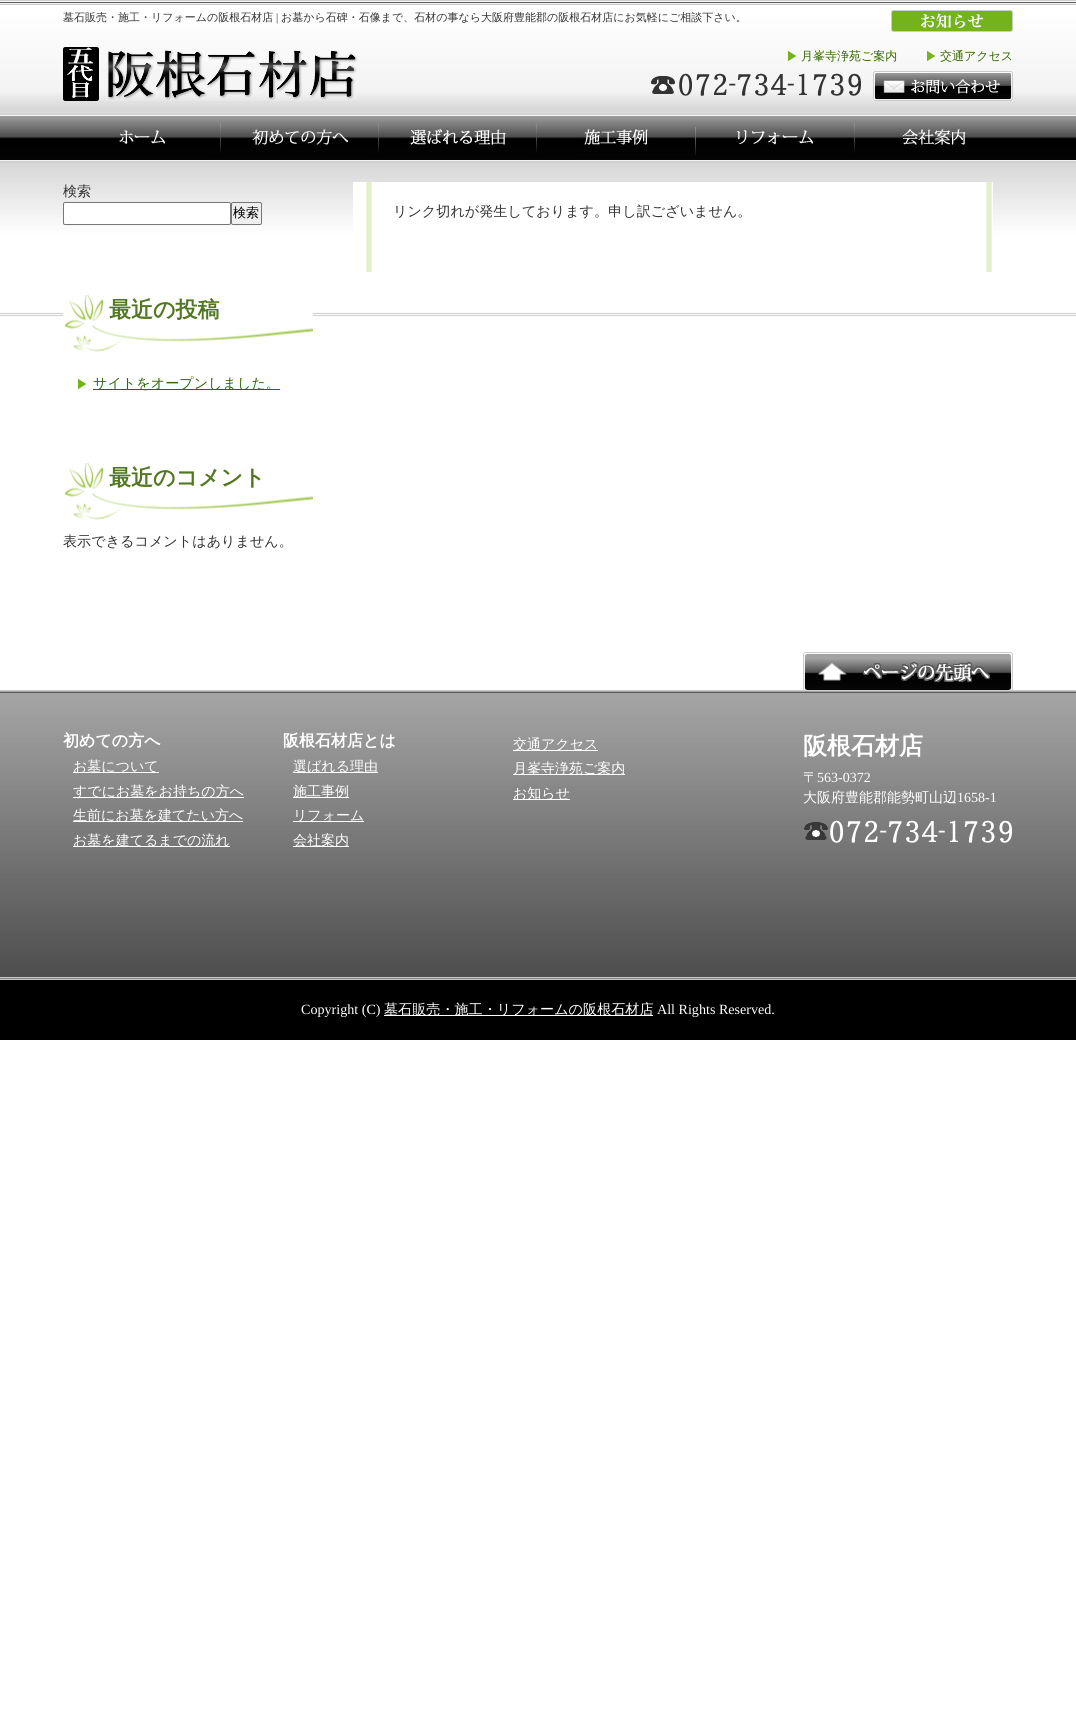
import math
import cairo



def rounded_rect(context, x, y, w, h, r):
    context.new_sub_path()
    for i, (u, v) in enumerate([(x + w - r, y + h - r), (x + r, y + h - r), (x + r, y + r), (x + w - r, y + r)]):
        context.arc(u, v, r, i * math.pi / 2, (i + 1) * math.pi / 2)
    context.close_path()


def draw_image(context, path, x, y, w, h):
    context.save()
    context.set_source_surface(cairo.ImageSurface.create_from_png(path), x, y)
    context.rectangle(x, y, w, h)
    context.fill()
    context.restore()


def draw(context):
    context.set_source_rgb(1, 1, 1)
    context.paint()
    draw_image(context, "images/1.png", 0, 0, 1076, 116)
    draw_image(context, "images/2.png", 63, 47, 295, 54)
    draw_image(context, "images/3.png", 891, 10, 122, 22)
    draw_image(context, "images/4.png", 788, 51, 8, 10)
    draw_image(context, "images/4.png", 927, 51, 8, 10)
    draw_image(context, "images/5.png", 651, 73, 210, 23)
    draw_image(context, "images/6.png", 873, 71, 140, 30)
    draw_image(context, "images/7.png", 0, 116, 1076, 46)
    draw_image(context, "images/8.png", 119, 123, 102, 30)
    draw_image(context, "images/9.png", 249, 123, 130, 30)
    draw_image(context, "images/10.png", 404, 123, 133, 30)
    draw_image(context, "images/11.png", 577, 124, 119, 32)
    draw_image(context, "images/12.png", 737, 123, 118, 30)
    draw_image(context, "images/13.png", 902, 125, 65, 23)
    draw_image(context, "images/14.png", 0, 162, 1076, 154)
    context.set_source_rgb(1, 1, 1)
    rounded_rect(context, 63.5, 202.5, 167, 22, 1.5)
    context.fill_preserve()
    context.set_source_rgb(118 / 255, 118 / 255, 118 / 255)
    context.set_line_width(1)
    context.stroke()
    context.set_source_rgb(239 / 255, 239 / 255, 239 / 255)
    rounded_rect(context, 231.5, 202.5, 30, 22, 1.5)
    context.fill_preserve()
    context.set_source_rgb(118 / 255, 118 / 255, 118 / 255)
    context.stroke()
    draw_image(context, "images/15.png", 63, 295, 250, 57)
    draw_image(context, "images/4.png", 78, 379, 8, 10)
    context.set_source_rgb(51 / 255, 102 / 255, 0)
    context.rectangle(93, 389, 187, 1)
    context.fill()
    draw_image(context, "images/16.png", 64, 463, 249, 57)
    draw_image(context, "images/17.png", 353, 182, 640, 90)
    draw_image(context, "images/18.png", 803, 652, 210, 38)
    draw_image(context, "images/19.png", 0, 690, 1076, 290)
    context.set_source_rgb(1, 1, 1)
    context.rectangle(73, 772, 86, 1)
    context.fill()
    context.rectangle(73, 797, 171, 1)
    context.fill()
    context.rectangle(73, 821, 170, 1)
    context.fill()
    context.rectangle(73, 846, 157, 1)
    context.fill()
    context.rectangle(293, 772, 85, 1)
    context.fill()
    context.rectangle(293, 797, 56, 1)
    context.fill()
    context.rectangle(293, 821, 71, 1)
    context.fill()
    context.rectangle(293, 846, 56, 1)
    context.fill()
    context.rectangle(513, 750, 85, 1)
    context.fill()
    context.rectangle(513, 774, 112, 1)
    context.fill()
    context.rectangle(513, 799, 57, 1)
    context.fill()
    draw_image(context, "images/20.png", 804, 820, 208, 23)
    context.set_source_rgb(0, 0, 0)
    context.rectangle(0, 980, 1076, 60)
    context.fill()
    context.set_source_rgb(1, 1, 1)
    context.rectangle(384, 1015, 269, 1)
    context.fill()
    context.select_font_face("WenQuanYi Zen Hei Medium")
    context.set_font_size(11)
    context.set_source_rgb(51 / 255, 51 / 255, 51 / 255)
    context.move_to(63, 21)
    context.show_text("墓石販売・施工・リフォームの阪根石材店")
    context.select_font_face("Liberation Serif")
    context.move_to(276, 21)
    context.show_text("|")
    context.select_font_face("WenQuanYi Zen Hei Medium")
    context.move_to(281, 21)
    context.show_text("お墓から石碑・石像まで、石材の事なら大阪府豊能郡の阪根石材店にお気軽にご相談下さい。")
    context.set_font_size(12)
    context.set_source_rgb(51 / 255, 102 / 255, 0)
    context.move_to(801, 60)
    context.show_text("月峯寺浄苑ご案内")
    context.move_to(940, 60)
    context.show_text("交通アクセス")
    context.set_font_size(14.1)
    context.set_source_rgb(51 / 255, 51 / 255, 51 / 255)
    context.move_to(63, 196)
    context.show_text("検索")
    context.set_font_size(13)
    context.set_source_rgb(0, 0, 0)
    context.move_to(233, 217)
    context.show_text("検索")
    context.select_font_face("WenQuanYi Zen Hei", cairo.FontSlant.NORMAL, cairo.FontWeight.BOLD)
    context.set_font_size(22)
    context.set_source_rgb(81 / 255, 120 / 255, 32 / 255)
    context.move_to(109, 317)
    context.show_text("最近の投稿")
    context.select_font_face("WenQuanYi Zen Hei Medium")
    context.set_font_size(14.1)
    context.set_source_rgb(51 / 255, 102 / 255, 0)
    context.move_to(93, 388)
    context.show_text("サイトをオープンしました。")
    context.select_font_face("WenQuanYi Zen Hei", cairo.FontSlant.NORMAL, cairo.FontWeight.BOLD)
    context.set_font_size(22)
    context.set_source_rgb(81 / 255, 120 / 255, 32 / 255)
    context.move_to(109, 485)
    context.show_text("最近のコメント")
    context.select_font_face("WenQuanYi Zen Hei Medium")
    context.set_font_size(14.1)
    context.set_source_rgb(51 / 255, 51 / 255, 51 / 255)
    context.move_to(63, 546)
    context.show_text("表示できるコメントはありません。")
    context.move_to(393, 216)
    context.show_text("リンク切れが発生しております。申し訳ございません。")
    context.select_font_face("WenQuanYi Zen Hei", cairo.FontSlant.NORMAL, cairo.FontWeight.BOLD)
    context.set_font_size(16)
    context.set_source_rgb(1, 1, 1)
    context.move_to(63, 746)
    context.show_text("初めての方へ")
    context.select_font_face("WenQuanYi Zen Hei Medium")
    context.set_font_size(14)
    context.move_to(73, 771)
    context.show_text("お墓について")
    context.move_to(73, 796)
    context.show_text("すでにお墓をお持ちの方へ")
    context.move_to(73, 820)
    context.show_text("生前にお墓を建てたい方へ")
    context.move_to(73, 845)
    context.show_text("お墓を建てるまでの流れ")
    context.select_font_face("WenQuanYi Zen Hei", cairo.FontSlant.NORMAL, cairo.FontWeight.BOLD)
    context.set_font_size(16)
    context.move_to(283, 746)
    context.show_text("阪根石材店とは")
    context.select_font_face("WenQuanYi Zen Hei Medium")
    context.set_font_size(14)
    context.move_to(293, 771)
    context.show_text("選ばれる理由")
    context.move_to(293, 796)
    context.show_text("施工事例")
    context.move_to(293, 820)
    context.show_text("リフォーム")
    context.move_to(293, 845)
    context.show_text("会社案内")
    context.move_to(513, 749)
    context.show_text("交通アクセス")
    context.move_to(513, 773)
    context.show_text("月峯寺浄苑ご案内")
    context.move_to(513, 798)
    context.show_text("お知らせ")
    context.select_font_face("WenQuanYi Zen Hei", cairo.FontSlant.NORMAL, cairo.FontWeight.BOLD)
    context.set_font_size(24)
    context.move_to(803, 754)
    context.show_text("阪根石材店")
    context.select_font_face("WenQuanYi Zen Hei Medium")
    context.set_font_size(14)
    context.move_to(803, 782)
    context.show_text("〒")
    context.select_font_face("Liberation Serif")
    context.move_to(817, 782)
    context.show_text("563-0372")
    context.select_font_face("WenQuanYi Zen Hei Medium")
    context.move_to(803, 802)
    context.show_text("大阪府豊能郡能勢町山辺")
    context.select_font_face("Liberation Serif")
    context.move_to(957, 802)
    context.show_text("1658-1")
    context.set_font_size(14.1)
    context.move_to(301, 1014)
    context.show_text("Copyright (C)")
    context.select_font_face("WenQuanYi Zen Hei Medium")
    context.move_to(384, 1014)
    context.show_text("墓石販売・施工・リフォームの阪根石材店")
    context.select_font_face("Liberation Serif")
    context.move_to(657, 1014)
    context.show_text("All Rights Reserved.")


surface = cairo.ImageSurface(cairo.Format.RGB24, 1076, 1733)
context = cairo.Context(surface)
options = cairo.FontOptions()
options.set_hint_metrics(cairo.HintMetrics.OFF)
options.set_hint_style(cairo.HintStyle.NONE)
context.set_font_options(options)
context.set_miter_limit(4)
draw(context)
surface.write_to_png("out.png")
